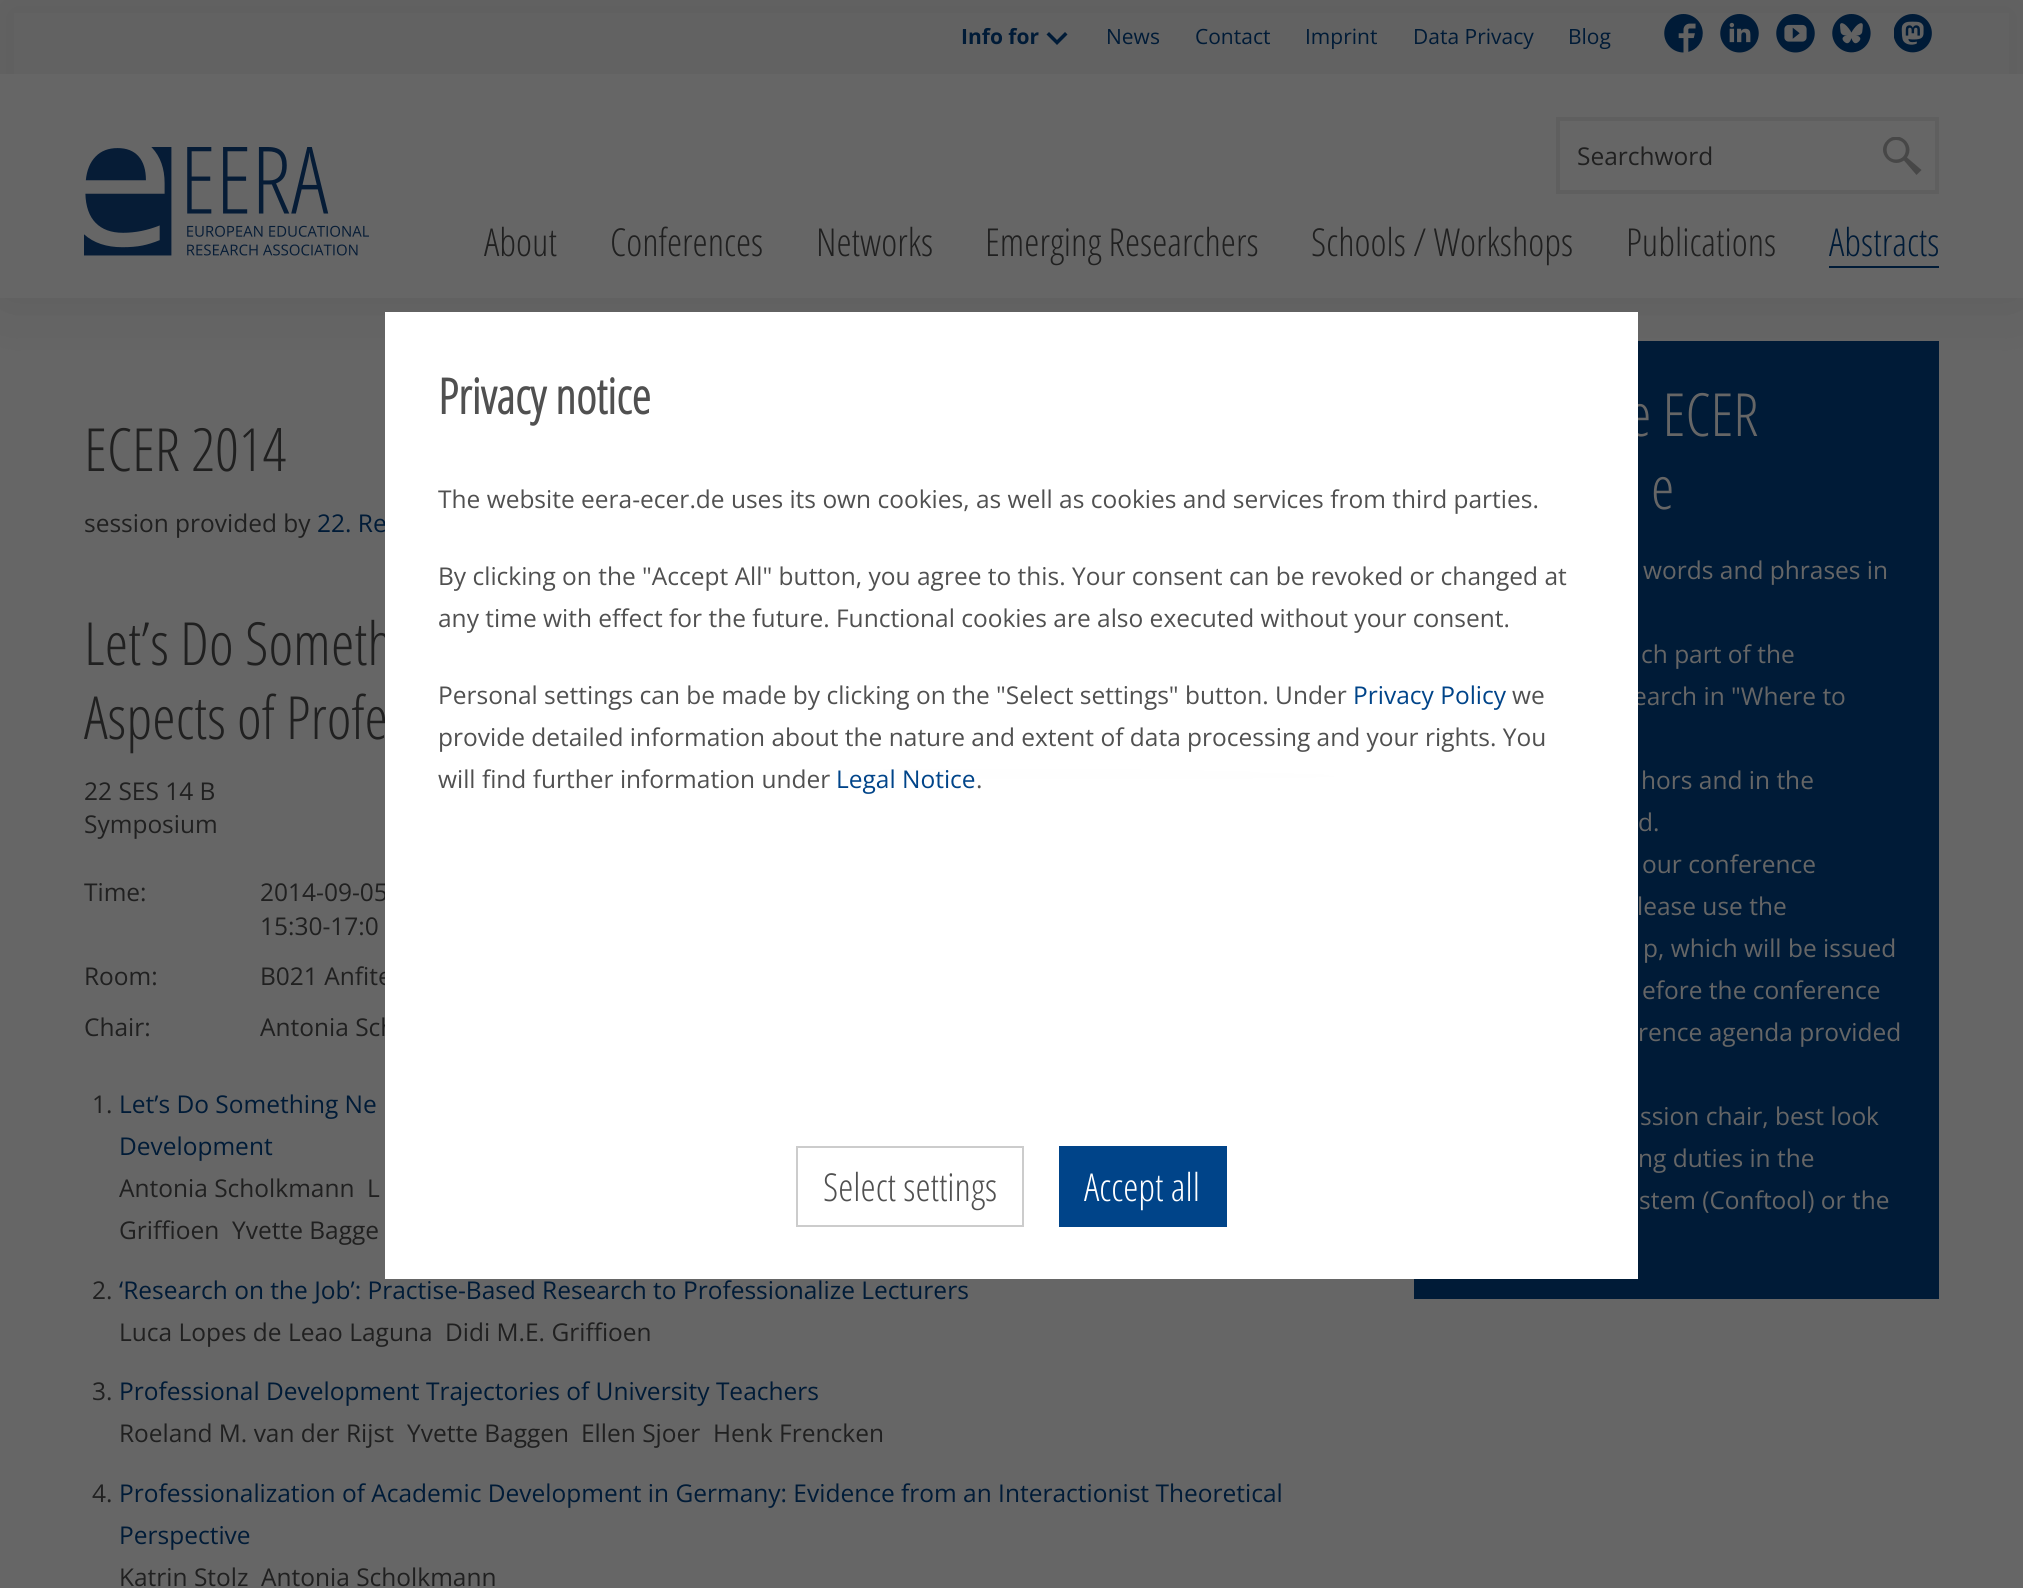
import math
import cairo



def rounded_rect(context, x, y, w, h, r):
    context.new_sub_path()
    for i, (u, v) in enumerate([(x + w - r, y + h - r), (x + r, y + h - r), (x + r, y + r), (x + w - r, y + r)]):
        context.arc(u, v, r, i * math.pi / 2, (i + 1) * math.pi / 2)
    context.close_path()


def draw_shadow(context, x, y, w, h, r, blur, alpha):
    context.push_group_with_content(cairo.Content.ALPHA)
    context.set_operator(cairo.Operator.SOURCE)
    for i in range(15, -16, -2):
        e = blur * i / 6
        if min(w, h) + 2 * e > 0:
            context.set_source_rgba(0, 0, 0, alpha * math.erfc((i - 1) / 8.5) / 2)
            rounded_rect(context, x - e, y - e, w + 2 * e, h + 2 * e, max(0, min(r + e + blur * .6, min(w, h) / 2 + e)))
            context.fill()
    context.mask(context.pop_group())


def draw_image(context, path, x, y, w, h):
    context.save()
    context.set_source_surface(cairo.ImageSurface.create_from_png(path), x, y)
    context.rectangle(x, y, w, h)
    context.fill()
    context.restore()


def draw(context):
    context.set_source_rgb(102 / 255, 102 / 255, 102 / 255)
    context.paint()
    context.set_source_rgb(0, 27 / 255, 55 / 255)
    context.rectangle(1414, 341, 525, 958)
    context.fill()
    context.set_source_rgb(0, 0, 0)
    draw_shadow(context, 0, 0, 2023, 298, 0, 35, 0.1)
    context.set_source_rgb(102 / 255, 102 / 255, 102 / 255)
    context.rectangle(0, 74, 2023, 224)
    context.fill()
    context.set_source_rgb(98 / 255, 98 / 255, 98 / 255)
    context.rectangle(14, 13, 1995, 61)
    context.fill()
    context.set_source_rgb(0, 27 / 255, 55 / 255)
    context.new_path()
    context.move_to(1067.5, 34.5)
    context.line_to(1065, 32)
    context.line_to(1057, 40)
    context.line_to(1049, 32)
    context.line_to(1046.5, 34.5)
    context.line_to(1057, 45)
    context.close_path()
    context.fill()
    draw_image(context, "images/1.png", 1664, 14, 39, 39)
    draw_image(context, "images/2.png", 1720, 14, 39, 39)
    draw_image(context, "images/3.png", 1776, 14, 39, 39)
    draw_image(context, "images/4.png", 1832, 14, 39, 39)
    draw_image(context, "images/5.png", 1894, 14, 38, 39)
    draw_image(context, "images/6.png", 84, 147, 285, 109)
    context.rectangle(1558, 119, 379, 73)
    context.set_source_rgb(95 / 255, 95 / 255, 95 / 255)
    context.set_line_width(4)
    context.stroke()
    context.save()
    context.rectangle(1883, 137, 39, 38)
    context.clip()
    context.set_source_rgb(71 / 255, 71 / 255, 71 / 255)
    context.new_path()
    context.move_to(1907, 157.5)
    context.curve_to(1916, 144.5, 1898.5, 129, 1887, 140.5)
    context.curve_to(1875.5, 152, 1891, 169.5, 1904, 160.5)
    context.line_to(1916.5, 175)
    context.line_to(1921.5, 170)
    context.close_path()
    context.move_to(1896, 159.5)
    context.curve_to(1883.5, 159.5, 1883.5, 140, 1896, 140)
    context.curve_to(1909, 140, 1909, 159.5, 1896, 159.5)
    context.close_path()
    context.fill()
    context.restore()
    context.set_source_rgb(0, 27 / 255, 55 / 255)
    context.rectangle(1829, 266, 110, 2)
    context.fill()
    context.select_font_face("Open Sans", cairo.FontSlant.NORMAL, cairo.FontWeight.BOLD)
    context.set_font_size(21)
    context.move_to(961, 44)
    context.show_text("Info for")
    context.select_font_face("Open Sans")
    context.move_to(1106, 44)
    context.show_text("News")
    context.move_to(1195, 44)
    context.show_text("Contact")
    context.move_to(1305, 44)
    context.show_text("Imprint")
    context.move_to(1413, 44)
    context.show_text("Data Privacy")
    context.move_to(1568, 44)
    context.show_text("Blog")
    context.set_font_size(24.5)
    context.set_source_rgb(32 / 255, 32 / 255, 32 / 255)
    context.move_to(1577, 165)
    context.show_text("Searchword")
    context.select_font_face("Open Sans Condensed Light")
    context.set_font_size(38.5)
    context.move_to(484, 256)
    context.show_text("About")
    context.move_to(610, 256)
    context.show_text("Conferences")
    context.move_to(816, 256)
    context.show_text("Networks")
    context.move_to(985, 256)
    context.show_text("Emerging Researchers")
    context.move_to(1311, 256)
    context.show_text("Schools / Workshops")
    context.move_to(1626, 256)
    context.show_text("Publications")
    context.set_source_rgb(0, 27 / 255, 55 / 255)
    context.move_to(1829, 256)
    context.show_text("Abstracts")
    context.set_font_size(59.5)
    context.set_source_rgb(32 / 255, 32 / 255, 32 / 255)
    context.move_to(84, 471)
    context.show_text("ECER 2014")
    context.select_font_face("Open Sans")
    context.set_font_size(24.5)
    context.move_to(84, 532)
    context.show_text("session provided by")
    context.set_source_rgb(0, 27 / 255, 55 / 255)
    context.move_to(317, 532)
    context.show_text("22. Re")
    context.select_font_face("Open Sans Condensed Light")
    context.set_font_size(59.5)
    context.set_source_rgb(32 / 255, 32 / 255, 32 / 255)
    context.move_to(84, 665)
    context.show_text("Let’s Do Someth")
    context.move_to(84, 739)
    context.show_text("Aspects of Profe")
    context.select_font_face("Open Sans")
    context.set_font_size(24.5)
    context.move_to(84, 800)
    context.show_text("22 SES 14 B")
    context.move_to(84, 833)
    context.show_text("Symposium")
    context.move_to(84, 901)
    context.show_text("Time:")
    context.move_to(260, 901)
    context.show_text("2014-09-05")
    context.move_to(260, 935)
    context.show_text("15:30-17:0")
    context.move_to(84, 985)
    context.show_text("Room:")
    context.move_to(260, 985)
    context.show_text("B021 Anfite")
    context.move_to(84, 1036)
    context.show_text("Chair:")
    context.move_to(260, 1036)
    context.show_text("Antonia Sch")
    context.move_to(92, 1113)
    context.show_text("1.")
    context.set_source_rgb(0, 27 / 255, 55 / 255)
    context.move_to(119, 1113)
    context.show_text("Let’s Do Something Ne")
    context.move_to(119, 1155)
    context.show_text("Development")
    context.set_source_rgb(32 / 255, 32 / 255, 32 / 255)
    context.move_to(119, 1197)
    context.show_text("Antonia Scholkmann")
    context.move_to(367, 1197)
    context.show_text("L")
    context.move_to(119, 1239)
    context.show_text("Griffioen")
    context.move_to(232, 1239)
    context.show_text("Yvette Bagge")
    context.move_to(92, 1299)
    context.show_text("2.")
    context.set_source_rgb(0, 27 / 255, 55 / 255)
    context.move_to(119, 1299)
    context.show_text("‘Research on the Job’: Practise-Based Research to Professionalize Lecturers")
    context.set_source_rgb(32 / 255, 32 / 255, 32 / 255)
    context.move_to(119, 1341)
    context.show_text("Luca Lopes de Leao Laguna")
    context.move_to(445, 1341)
    context.show_text("Didi M.E. Griffioen")
    context.move_to(92, 1400)
    context.show_text("3.")
    context.set_source_rgb(0, 27 / 255, 55 / 255)
    context.move_to(119, 1400)
    context.show_text("Professional Development Trajectories of University Teachers")
    context.set_source_rgb(32 / 255, 32 / 255, 32 / 255)
    context.move_to(119, 1442)
    context.show_text("Roeland M. van der Rijst")
    context.move_to(407, 1442)
    context.show_text("Yvette Baggen")
    context.move_to(581, 1442)
    context.show_text("Ellen Sjoer")
    context.move_to(713, 1442)
    context.show_text("Henk Frencken")
    context.move_to(92, 1502)
    context.show_text("4.")
    context.set_source_rgb(0, 27 / 255, 55 / 255)
    context.move_to(119, 1502)
    context.show_text("Professionalization of Academic Development in Germany: Evidence from an Interactionist Theoretical")
    context.move_to(119, 1544)
    context.show_text("Perspective")
    context.set_source_rgb(32 / 255, 32 / 255, 32 / 255)
    context.move_to(119, 1586)
    context.show_text("Katrin Stolz")
    context.move_to(261, 1586)
    context.show_text("Antonia Scholkmann")
    context.select_font_face("Open Sans Condensed Light")
    context.set_font_size(59.5)
    context.set_source_rgb(102 / 255, 102 / 255, 102 / 255)
    context.move_to(1628, 436)
    context.show_text("e ECER")
    context.move_to(1651, 509)
    context.show_text("e")
    context.select_font_face("Open Sans")
    context.set_font_size(24.5)
    context.move_to(1643, 579)
    context.show_text("words and phrases in")
    context.move_to(1641, 663)
    context.show_text("ch part of the")
    context.move_to(1633, 705)
    context.show_text("earch in \"Where to")
    context.move_to(1641, 789)
    context.show_text("hors and in the")
    context.move_to(1638, 831)
    context.show_text("d.")
    context.move_to(1642, 873)
    context.show_text("our conference")
    context.move_to(1637, 915)
    context.show_text("lease use the")
    context.move_to(1643, 957)
    context.show_text("p, which will be issued")
    context.move_to(1642, 999)
    context.show_text("efore the conference")
    context.move_to(1638, 1041)
    context.show_text("rence agenda provided")
    context.move_to(1640, 1125)
    context.show_text("ssion chair, best look")
    context.move_to(1638, 1167)
    context.show_text("ng duties in the")
    context.move_to(1639, 1209)
    context.show_text("stem (Conftool) or the")
    context.set_source_rgb(1, 1, 1)
    context.rectangle(385, 312, 1253, 967)
    context.fill()
    gradient = cairo.RadialGradient(0, 0, 0, 0, 0, 1)
    gradient.set_matrix(cairo.Matrix(1 / 627, 0, 0, 1 / 35, -1 * 1012 / 627, -1 * 802 / 35))
    gradient.add_color_stop_rgba(0, 204 / 255, 204 / 255, 204 / 255, 1)
    gradient.add_color_stop_rgba(1, 1, 1, 1, 1)
    context.set_source(gradient)
    context.rectangle(575, 769, 874, 11)
    context.fill()
    gradient = cairo.LinearGradient(1012, 731, 1012, 802)
    gradient.add_color_stop_rgba(0, 1, 1, 1, 0)
    gradient.add_color_stop_rgba(0.7, 1, 1, 1, 1)
    context.set_source(gradient)
    context.rectangle(575, 769, 874, 11)
    context.fill()
    context.select_font_face("Open Sans Condensed", cairo.FontSlant.NORMAL, cairo.FontWeight.BOLD)
    context.set_font_size(49)
    context.set_source_rgb(80 / 255, 80 / 255, 80 / 255)
    context.move_to(438, 414)
    context.show_text("Privacy notice")
    context.select_font_face("Open Sans")
    context.set_font_size(24.5)
    context.move_to(438, 508)
    context.show_text("The website eera-ecer.de uses its own cookies, as well as cookies and services from third parties.")
    context.move_to(438, 585)
    context.show_text("By clicking on the \"Accept All\" button, you agree to this. Your consent can be revoked or changed at")
    context.move_to(438, 627)
    context.show_text("any time with effect for the future. Functional cookies are also executed without your consent.")
    context.move_to(438, 704)
    context.show_text("Personal settings can be made by clicking on the \"Select settings\" button. Under")
    context.set_source_rgb(0, 68 / 255, 137 / 255)
    context.move_to(1353, 704)
    context.show_text("Privacy Policy")
    context.set_source_rgb(80 / 255, 80 / 255, 80 / 255)
    context.move_to(1512, 704)
    context.show_text("we")
    context.move_to(438, 746)
    context.show_text("provide detailed information about the nature and extent of data processing and your rights. You")
    context.move_to(438, 788)
    context.show_text("will find further information under")
    context.set_source_rgb(0, 68 / 255, 137 / 255)
    context.move_to(836, 788)
    context.show_text("Legal Notice")
    context.set_source_rgb(80 / 255, 80 / 255, 80 / 255)
    context.move_to(976, 788)
    context.show_text(".")
    context.rectangle(797, 1147, 226, 79)
    context.set_source_rgb(204 / 255, 204 / 255, 204 / 255)
    context.set_line_width(2)
    context.stroke()
    context.select_font_face("Open Sans Condensed Light")
    context.set_font_size(38.5)
    context.set_source_rgb(80 / 255, 80 / 255, 80 / 255)
    context.move_to(823, 1201)
    context.show_text("Select settings")
    context.set_source_rgb(0, 68 / 255, 137 / 255)
    context.rectangle(1059, 1146, 168, 81)
    context.fill()
    context.set_source_rgb(1, 1, 1)
    context.move_to(1084, 1201)
    context.show_text("Accept all")


surface = cairo.ImageSurface(cairo.Format.RGB24, 2023, 1588)
context = cairo.Context(surface)
options = cairo.FontOptions()
options.set_hint_metrics(cairo.HintMetrics.OFF)
options.set_hint_style(cairo.HintStyle.NONE)
context.set_font_options(options)
context.set_miter_limit(4)
draw(context)
surface.write_to_png("out.png")
